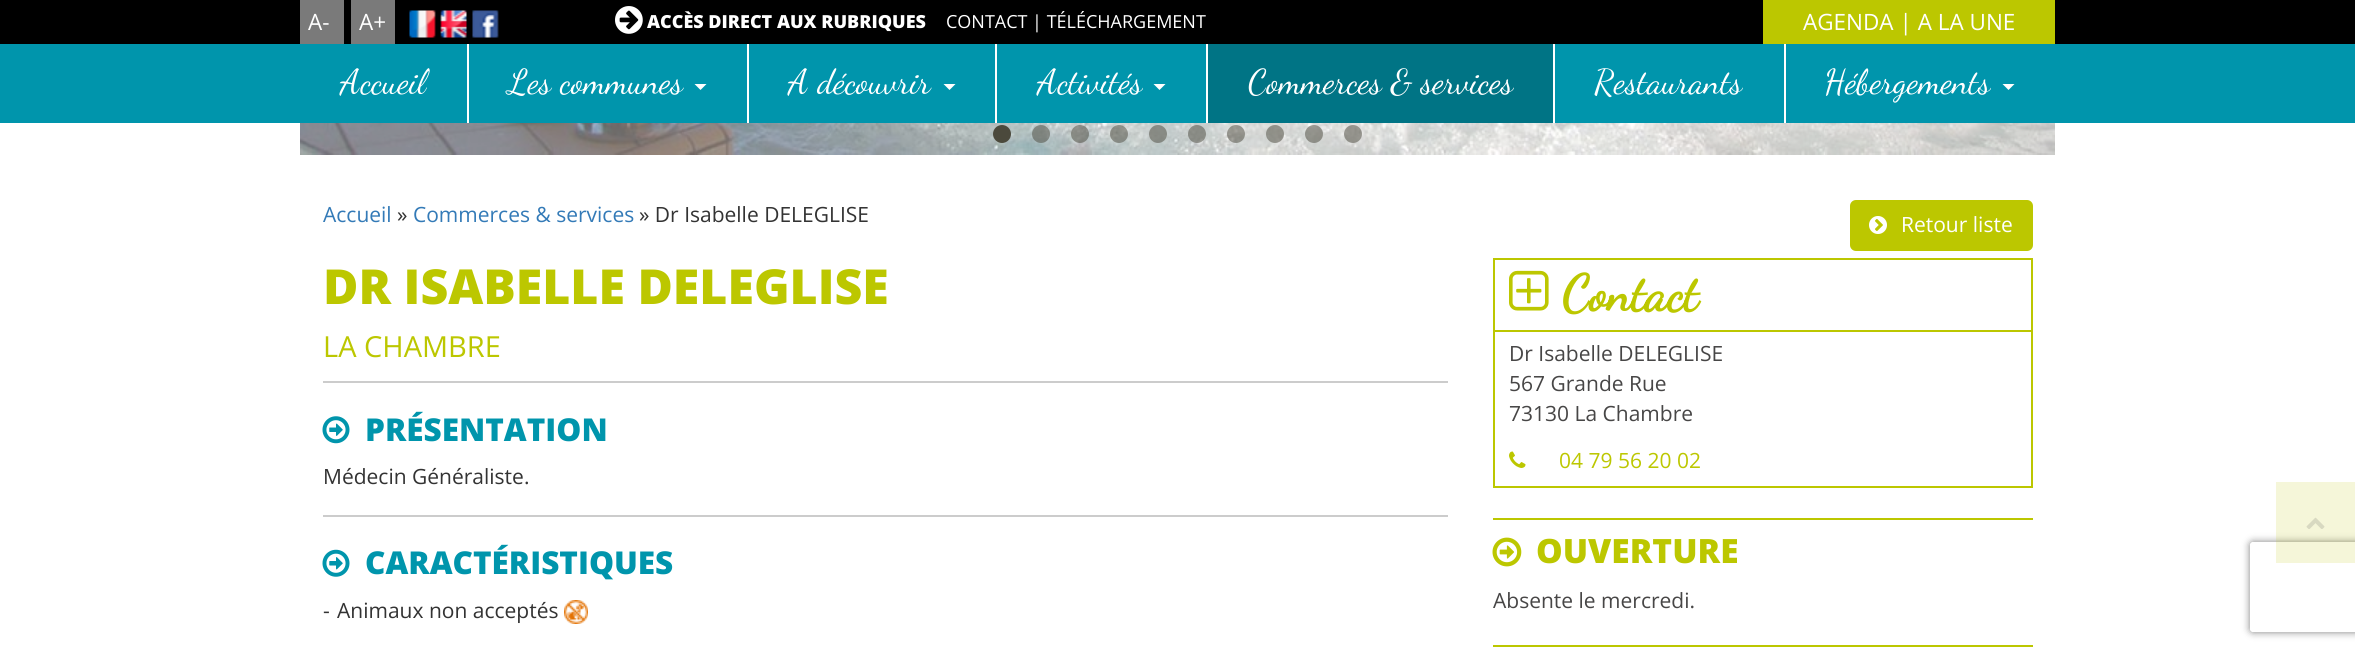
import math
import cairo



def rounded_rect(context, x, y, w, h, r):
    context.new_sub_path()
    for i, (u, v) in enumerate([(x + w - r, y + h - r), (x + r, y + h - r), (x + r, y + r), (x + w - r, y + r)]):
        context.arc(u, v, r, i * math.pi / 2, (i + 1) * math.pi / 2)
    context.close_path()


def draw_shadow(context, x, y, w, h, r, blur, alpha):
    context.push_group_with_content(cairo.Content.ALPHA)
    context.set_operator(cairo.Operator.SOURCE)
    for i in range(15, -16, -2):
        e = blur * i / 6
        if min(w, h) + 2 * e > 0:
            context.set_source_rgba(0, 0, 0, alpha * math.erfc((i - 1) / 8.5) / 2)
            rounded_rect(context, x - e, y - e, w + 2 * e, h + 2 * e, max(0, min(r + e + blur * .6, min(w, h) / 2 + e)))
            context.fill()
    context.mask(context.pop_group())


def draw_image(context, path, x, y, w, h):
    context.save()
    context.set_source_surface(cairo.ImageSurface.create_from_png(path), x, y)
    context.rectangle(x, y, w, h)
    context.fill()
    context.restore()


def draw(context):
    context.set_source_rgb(1, 1, 1)
    context.paint()
    context.set_source_rgb(0, 0, 0)
    context.rectangle(0, 0, 2355, 44)
    context.fill()
    context.set_source_rgb(122 / 255, 122 / 255, 122 / 255)
    context.rectangle(300, 0, 44, 44)
    context.fill()
    context.rectangle(351, 0, 44, 44)
    context.fill()
    draw_image(context, "images/1.png", 409, 10, 27, 28)
    draw_image(context, "images/2.png", 440, 10, 27, 28)
    draw_image(context, "images/3.png", 472, 10, 27, 28)
    draw_image(context, "images/4.png", 615, 6, 28, 28)
    context.set_source_rgb(188 / 255, 199 / 255, 0)
    context.rectangle(1763, 0, 292, 44)
    context.fill()
    context.set_source_rgb(0, 149 / 255, 172 / 255)
    context.rectangle(0, 44, 2355, 79)
    context.fill()
    context.set_source_rgb(1, 1, 1)
    context.rectangle(467, 44, 2, 79)
    context.fill()
    context.new_path()
    context.move_to(694.5, 84)
    context.line_to(706.5, 84)
    context.line_to(700.5, 90)
    context.close_path()
    context.fill()
    context.rectangle(747, 44, 2, 79)
    context.fill()
    context.new_path()
    context.move_to(943.5, 84)
    context.line_to(955.5, 84)
    context.line_to(949.5, 90)
    context.close_path()
    context.fill()
    context.rectangle(995, 44, 2, 79)
    context.fill()
    context.new_path()
    context.move_to(1153.5, 84)
    context.line_to(1165.5, 84)
    context.line_to(1159.5, 90)
    context.close_path()
    context.fill()
    context.set_source_rgb(0, 116 / 255, 133 / 255)
    context.rectangle(1208, 44, 345, 79)
    context.fill()
    context.set_source_rgb(1, 1, 1)
    context.rectangle(1206, 44, 2, 79)
    context.fill()
    context.rectangle(1553, 44, 2, 79)
    context.fill()
    context.rectangle(1784, 44, 2, 79)
    context.fill()
    context.new_path()
    context.move_to(2002.5, 84)
    context.line_to(2014.5, 84)
    context.line_to(2008.5, 90)
    context.close_path()
    context.fill()
    draw_image(context, "images/5.png", 300, 123, 1755, 32)
    context.set_source_rgba(1, 1, 1, 0.4)
    context.rectangle(300, 123, 1755, 32)
    context.fill()
    context.set_source_rgb(75 / 255, 73 / 255, 60 / 255)
    context.arc(1002, 134, 9, 0, 2 * math.pi)
    context.fill()
    context.set_source_rgba(75 / 255, 73 / 255, 60 / 255, 0.5)
    context.arc(1041, 134, 9, 0, 2 * math.pi)
    context.fill()
    context.arc(1080, 134, 9, 0, 2 * math.pi)
    context.fill()
    context.arc(1119, 134, 9, 0, 2 * math.pi)
    context.fill()
    context.arc(1158, 134, 9, 0, 2 * math.pi)
    context.fill()
    context.arc(1197, 134, 9, 0, 2 * math.pi)
    context.fill()
    context.arc(1236, 134, 9, 0, 2 * math.pi)
    context.fill()
    context.arc(1275, 134, 9, 0, 2 * math.pi)
    context.fill()
    context.arc(1314, 134, 9, 0, 2 * math.pi)
    context.fill()
    context.arc(1353, 134, 9, 0, 2 * math.pi)
    context.fill()
    context.save()
    context.set_fill_rule(cairo.FillRule.EVEN_ODD)
    context.new_path()
    context.move_to(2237, 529)
    context.line_to(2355, 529)
    context.line_to(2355, 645)
    context.line_to(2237, 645)
    context.close_path()
    context.move_to(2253, 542)
    context.line_to(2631, 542)
    context.curve_to(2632.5, 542, 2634, 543.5, 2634, 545)
    context.line_to(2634, 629)
    context.curve_to(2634, 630.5, 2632.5, 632, 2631, 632)
    context.line_to(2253, 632)
    context.curve_to(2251.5, 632, 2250, 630.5, 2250, 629)
    context.line_to(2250, 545)
    context.curve_to(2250, 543.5, 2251.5, 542, 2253, 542)
    context.close_path()
    context.clip()
    context.set_source_rgb(128 / 255, 128 / 255, 128 / 255)
    draw_shadow(context, 2250, 542, 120, 90, 3, 4, 1)
    context.restore()
    context.set_source_rgba(188 / 255, 199 / 255, 0, 0.15)
    context.rectangle(2276, 482, 79, 81)
    context.fill()
    draw_image(context, "images/6.png", 2306, 517, 19, 12)
    context.set_source_rgb(204 / 255, 204 / 255, 204 / 255)
    context.rectangle(323, 381, 1125, 2)
    context.fill()
    draw_image(context, "images/7.png", 322, 416, 28, 28)
    context.rectangle(323, 515, 1125, 2)
    context.fill()
    draw_image(context, "images/8.png", 322, 549, 28, 28)
    draw_image(context, "images/9.png", 564, 600, 24, 24)
    context.set_source_rgb(188 / 255, 199 / 255, 0)
    rounded_rect(context, 1850, 200, 183, 51, 6)
    context.fill()
    draw_image(context, "images/10.png", 1869, 216, 18, 18)
    context.rectangle(1494, 259, 538, 72)
    context.stroke()
    draw_image(context, "images/11.png", 1509, 270, 40, 41)
    context.rectangle(2031, 332, 2, 156)
    context.fill()
    context.rectangle(1493, 486, 540, 2)
    context.fill()
    context.rectangle(1493, 332, 2, 156)
    context.fill()
    draw_image(context, "images/12.png", 1509, 451, 17, 17)
    context.rectangle(1493, 518, 540, 2)
    context.fill()
    draw_image(context, "images/13.png", 1492, 537, 30, 30)
    context.rectangle(1493, 645, 540, 2)
    context.fill()
    context.select_font_face("Open Sans")
    context.set_font_size(22.5)
    context.set_source_rgb(1, 1, 1)
    context.move_to(308, 30)
    context.show_text("A-")
    context.move_to(359, 30)
    context.show_text("A+")
    context.select_font_face("Open Sans ExtraBold")
    context.set_font_size(18)
    context.move_to(647, 28)
    context.show_text("ACCÈS DIRECT AUX RUBRIQUES")
    context.select_font_face("Open Sans")
    context.move_to(946, 28)
    context.show_text("CONTACT | TÉLÉCHARGEMENT")
    context.set_font_size(22.5)
    context.move_to(1803, 30)
    context.show_text("AGENDA | A LA UNE")
    context.select_font_face("Dancing Script")
    context.set_font_size(34.5)
    context.move_to(340, 93)
    context.show_text("Accueil")
    context.move_to(508, 93)
    context.show_text("Les communes")
    context.move_to(788, 93)
    context.show_text("A découvrir")
    context.move_to(1037, 93)
    context.show_text("Activités")
    context.move_to(1248, 93)
    context.show_text("Commerces & services")
    context.move_to(1594, 93)
    context.show_text("Restaurants")
    context.move_to(1824, 93)
    context.show_text("Hébergements")
    context.select_font_face("Open Sans")
    context.set_font_size(21)
    context.set_source_rgb(51 / 255, 122 / 255, 183 / 255)
    context.move_to(323, 222)
    context.show_text("Accueil")
    context.set_source_rgb(51 / 255, 51 / 255, 51 / 255)
    context.move_to(397, 222)
    context.show_text("»")
    context.set_source_rgb(51 / 255, 122 / 255, 183 / 255)
    context.move_to(413, 222)
    context.show_text("Commerces & services")
    context.set_source_rgb(51 / 255, 51 / 255, 51 / 255)
    context.move_to(639, 222)
    context.show_text("» Dr Isabelle DELEGLISE")
    context.select_font_face("Open Sans ExtraBold")
    context.set_font_size(48.25)
    context.set_source_rgb(188 / 255, 199 / 255, 0)
    context.move_to(323, 304)
    context.show_text("DR ISABELLE DELEGLISE")
    context.select_font_face("Open Sans")
    context.set_font_size(29)
    context.move_to(323, 357)
    context.show_text("LA CHAMBRE")
    context.select_font_face("Open Sans ExtraBold")
    context.set_font_size(31.5)
    context.set_source_rgb(0, 149 / 255, 172 / 255)
    context.move_to(365, 441)
    context.show_text("PRÉSENTATION")
    context.select_font_face("Open Sans")
    context.set_font_size(21)
    context.set_source_rgb(51 / 255, 51 / 255, 51 / 255)
    context.move_to(323, 484)
    context.show_text("Médecin Généraliste.")
    context.select_font_face("Open Sans ExtraBold")
    context.set_font_size(31.5)
    context.set_source_rgb(0, 149 / 255, 172 / 255)
    context.move_to(365, 574)
    context.show_text("CARACTÉRISTIQUES")
    context.select_font_face("Open Sans")
    context.set_font_size(21)
    context.set_source_rgb(51 / 255, 51 / 255, 51 / 255)
    context.move_to(323, 618)
    context.show_text("-")
    context.move_to(337, 618)
    context.show_text("Animaux non acceptés")
    context.set_source_rgb(1, 1, 1)
    context.move_to(1901, 232)
    context.show_text("Retour liste")
    context.select_font_face("Dancing Script", cairo.FontSlant.NORMAL, cairo.FontWeight.BOLD)
    context.set_font_size(50.5)
    context.set_source_rgb(188 / 255, 199 / 255, 0)
    context.move_to(1562, 310)
    context.show_text("Contact")
    context.select_font_face("Open Sans")
    context.set_font_size(21)
    context.set_source_rgb(71 / 255, 70 / 255, 70 / 255)
    context.move_to(1509, 361)
    context.show_text("Dr Isabelle DELEGLISE")
    context.move_to(1509, 391)
    context.show_text("567 Grande Rue")
    context.move_to(1509, 421)
    context.show_text("73130 La Chambre")
    context.set_source_rgb(188 / 255, 199 / 255, 0)
    context.move_to(1559, 468)
    context.show_text("04 79 56 20 02")
    context.select_font_face("Open Sans ExtraBold")
    context.set_font_size(33.5)
    context.move_to(1536, 563)
    context.show_text("OUVERTURE")
    context.select_font_face("Open Sans")
    context.set_font_size(21)
    context.set_source_rgb(71 / 255, 70 / 255, 70 / 255)
    context.move_to(1493, 608)
    context.show_text("Absente le mercredi.")


surface = cairo.ImageSurface(cairo.Format.RGB24, 2355, 652)
context = cairo.Context(surface)
options = cairo.FontOptions()
options.set_hint_metrics(cairo.HintMetrics.OFF)
options.set_hint_style(cairo.HintStyle.NONE)
context.set_font_options(options)
context.set_miter_limit(4)
draw(context)
surface.write_to_png("out.png")
